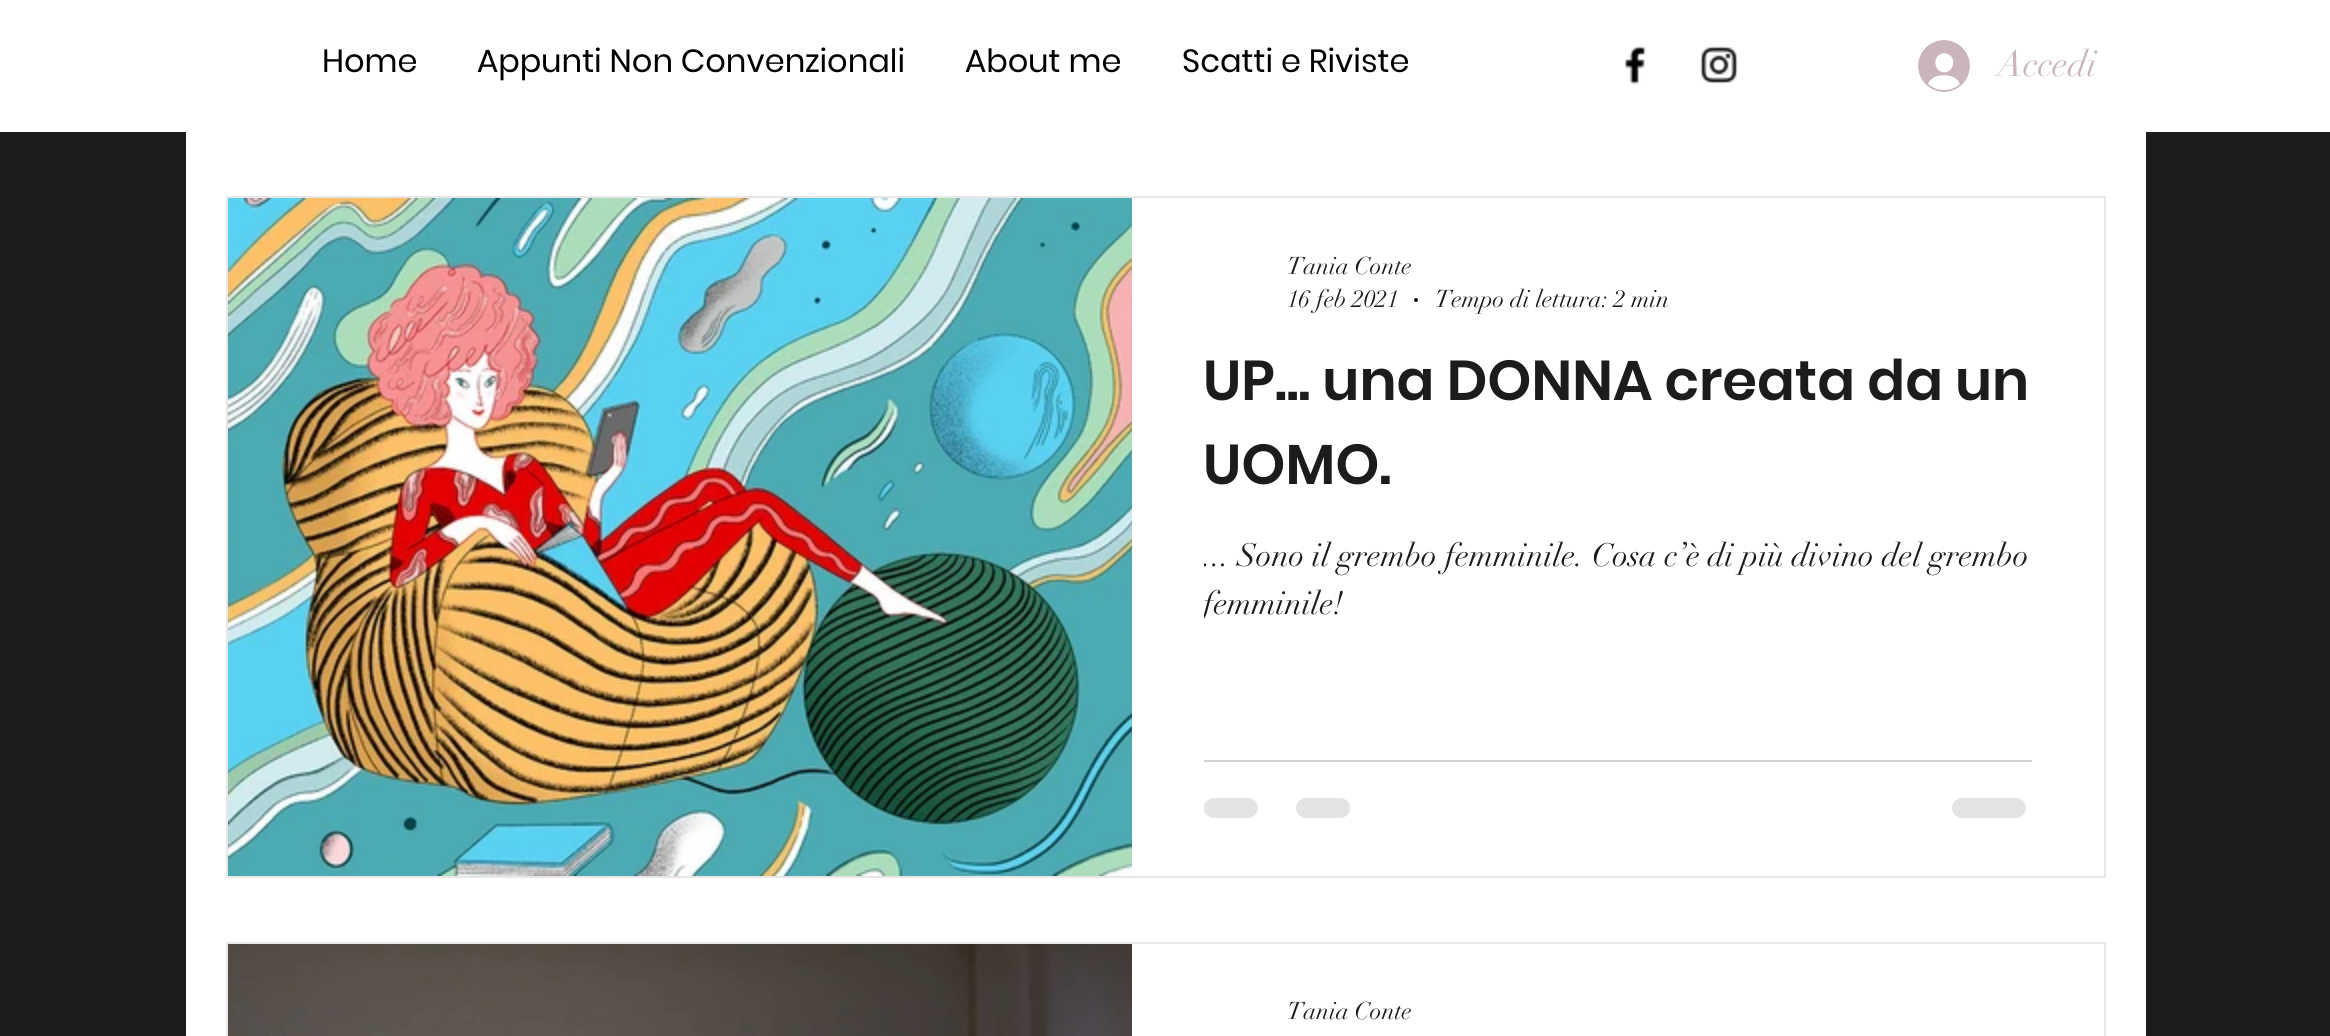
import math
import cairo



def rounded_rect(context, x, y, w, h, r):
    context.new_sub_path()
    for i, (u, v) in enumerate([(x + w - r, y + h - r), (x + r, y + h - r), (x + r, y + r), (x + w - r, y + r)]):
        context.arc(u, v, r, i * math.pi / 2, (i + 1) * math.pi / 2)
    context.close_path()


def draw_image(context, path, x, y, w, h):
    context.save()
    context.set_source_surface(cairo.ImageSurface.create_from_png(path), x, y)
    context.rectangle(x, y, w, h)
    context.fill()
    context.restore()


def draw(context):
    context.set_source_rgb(28 / 255, 28 / 255, 28 / 255)
    context.paint()
    context.set_source_rgb(1, 1, 1)
    context.rectangle(0, 0, 2330, 132)
    context.fill()
    draw_image(context, "images/1.png", 1624, 45, 23, 40)
    draw_image(context, "images/2.png", 1700, 46, 38, 38)
    draw_image(context, "images/3.png", 1918, 40, 52, 52)
    context.rectangle(186, 132, 1960, 904)
    context.fill()
    context.rectangle(227, 197, 1878, 680)
    context.set_source_rgb(232 / 255, 230 / 255, 230 / 255)
    context.stroke()
    draw_image(context, "images/4.png", 228, 198, 904, 678)
    context.set_source_rgb(28 / 255, 28 / 255, 28 / 255)
    context.arc(1416, 300, 2, 0, 2 * math.pi)
    context.fill()
    context.set_source_rgb(210 / 255, 210 / 255, 210 / 255)
    context.rectangle(1204, 760, 828, 2)
    context.fill()
    context.set_source_rgb(228 / 255, 228 / 255, 228 / 255)
    rounded_rect(context, 1204, 798, 54, 20, 10)
    context.fill()
    rounded_rect(context, 1296, 798, 54, 20, 10)
    context.fill()
    rounded_rect(context, 1952, 798, 74, 20, 10)
    context.fill()
    context.rectangle(227, 943, 1878, 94)
    context.set_source_rgb(232 / 255, 230 / 255, 230 / 255)
    context.stroke()
    draw_image(context, "images/5.png", 228, 944, 904, 92)
    context.select_font_face("Poppins")
    context.set_font_size(32)
    context.set_source_rgb(0, 0, 0)
    context.move_to(322, 72)
    context.show_text("Home")
    context.move_to(477, 72)
    context.show_text("Appunti Non Convenzionali")
    context.move_to(965, 72)
    context.show_text("About me")
    context.move_to(1182, 72)
    context.show_text("Scatti e Riviste")
    context.select_font_face("didot")
    context.set_font_size(36)
    context.set_source_rgb(201 / 255, 181 / 255, 187 / 255)
    context.move_to(1997, 76)
    context.show_text("Accedi")
    context.set_font_size(24)
    context.set_source_rgb(28 / 255, 28 / 255, 28 / 255)
    context.move_to(1287, 274)
    context.show_text("Tania Conte")
    context.move_to(1287, 307)
    context.show_text("16 feb 2021")
    context.move_to(1435, 307)
    context.show_text("Tempo di lettura: 2 min")
    context.select_font_face("Poppins SemiBold")
    context.set_font_size(56)
    context.move_to(1203, 400)
    context.show_text("UP... una DONNA creata da un")
    context.move_to(1203, 484)
    context.show_text("UOMO.")
    context.save()
    context.rectangle(1204, 532, 828, 96)
    context.clip()
    context.select_font_face("didot")
    context.set_font_size(32)
    context.move_to(1203, 566)
    context.show_text("... Sono il grembo femminile.")
    context.restore()
    context.select_font_face("didot")
    context.set_font_size(32)
    context.move_to(1592, 566)
    context.show_text("Cosa c’è di più divino del grembo")
    context.save()
    context.rectangle(1204, 532, 828, 96)
    context.clip()
    context.move_to(1203, 614)
    context.show_text("femminile!")
    context.restore()
    context.set_font_size(24)
    context.move_to(1287, 1019)
    context.show_text("Tania Conte")


surface = cairo.ImageSurface(cairo.Format.RGB24, 2330, 1036)
context = cairo.Context(surface)
options = cairo.FontOptions()
options.set_hint_metrics(cairo.HintMetrics.OFF)
options.set_hint_style(cairo.HintStyle.NONE)
context.set_font_options(options)
context.set_miter_limit(4)
draw(context)
surface.write_to_png("out.png")
